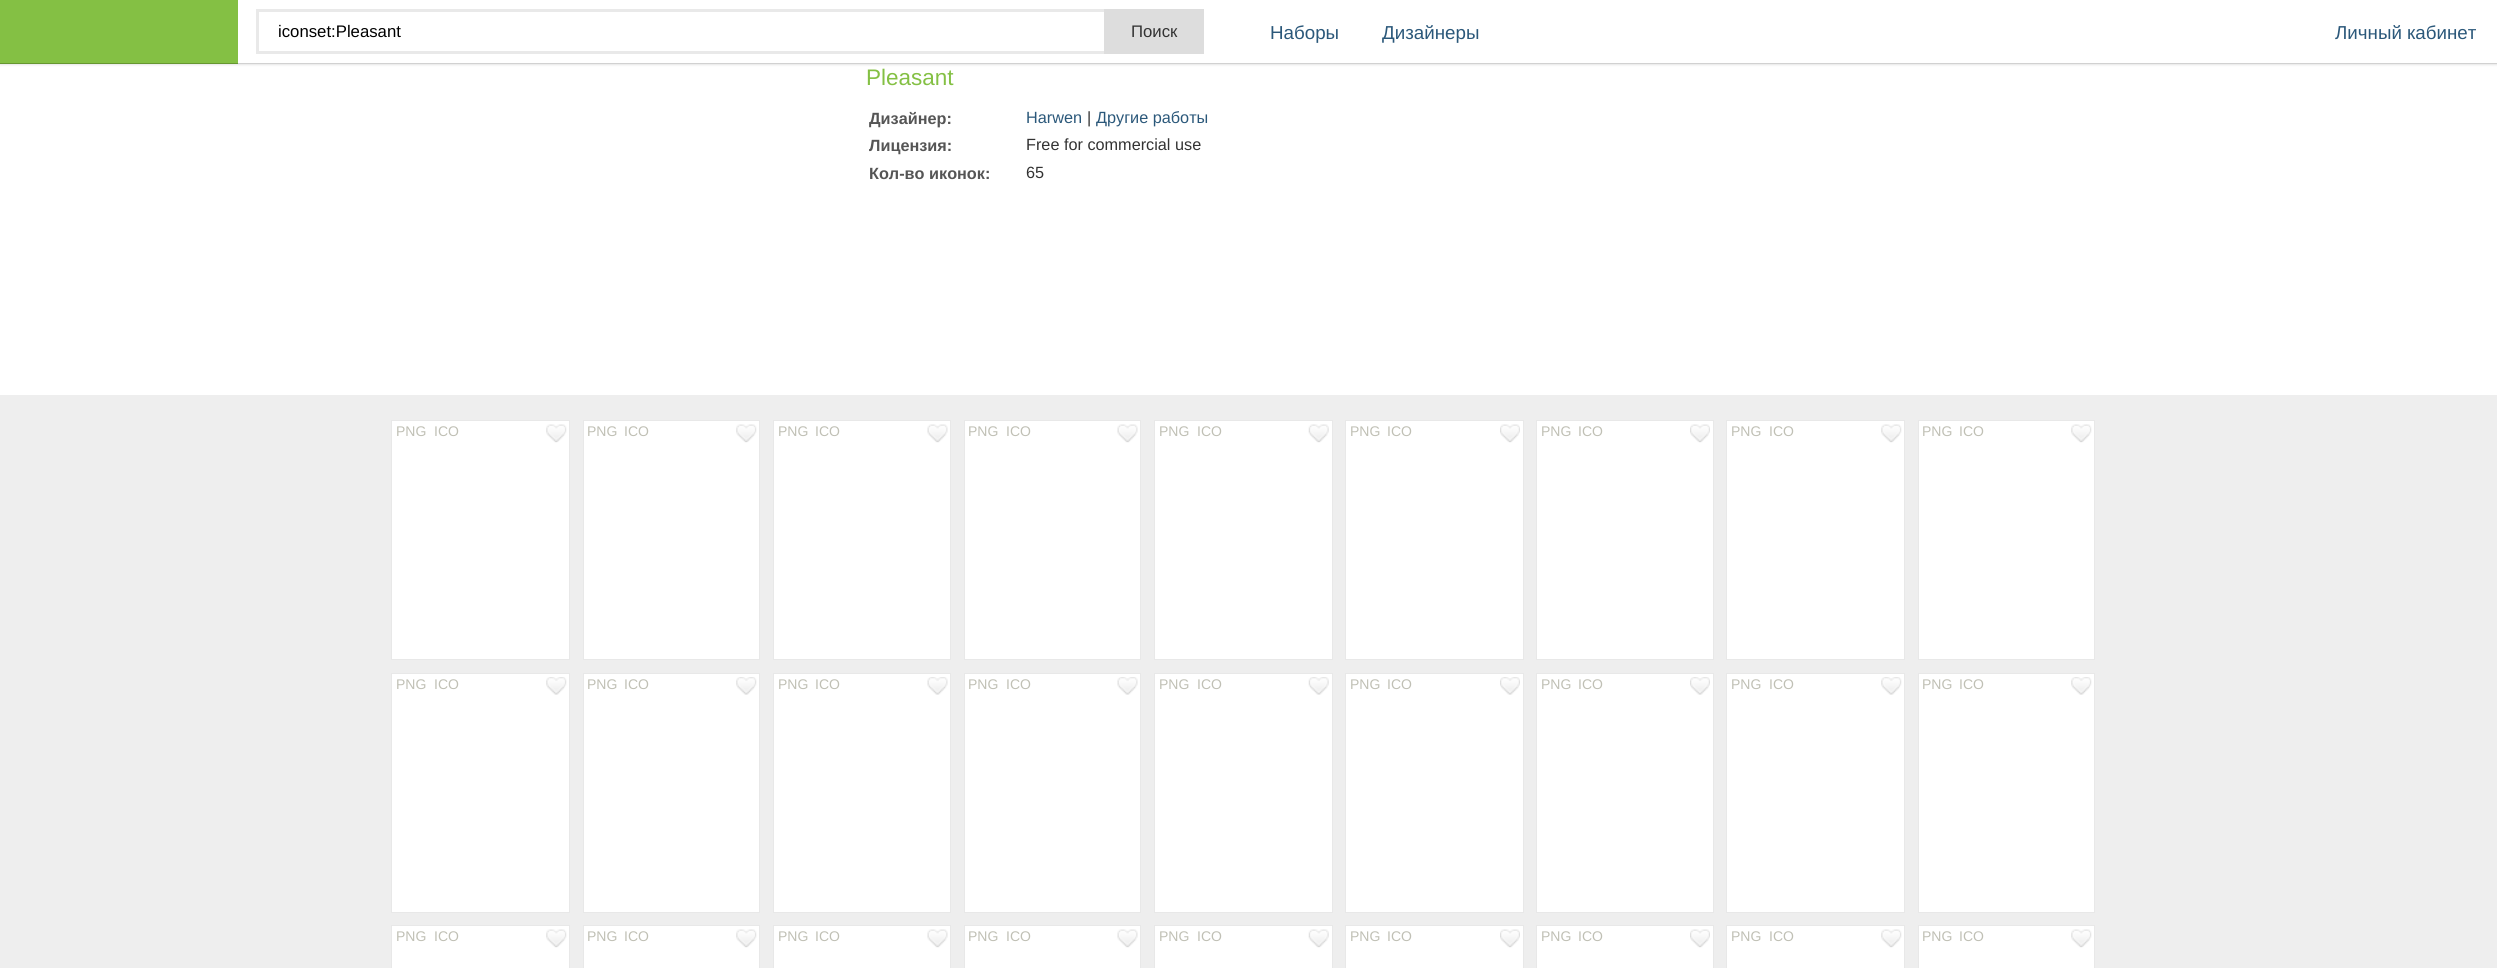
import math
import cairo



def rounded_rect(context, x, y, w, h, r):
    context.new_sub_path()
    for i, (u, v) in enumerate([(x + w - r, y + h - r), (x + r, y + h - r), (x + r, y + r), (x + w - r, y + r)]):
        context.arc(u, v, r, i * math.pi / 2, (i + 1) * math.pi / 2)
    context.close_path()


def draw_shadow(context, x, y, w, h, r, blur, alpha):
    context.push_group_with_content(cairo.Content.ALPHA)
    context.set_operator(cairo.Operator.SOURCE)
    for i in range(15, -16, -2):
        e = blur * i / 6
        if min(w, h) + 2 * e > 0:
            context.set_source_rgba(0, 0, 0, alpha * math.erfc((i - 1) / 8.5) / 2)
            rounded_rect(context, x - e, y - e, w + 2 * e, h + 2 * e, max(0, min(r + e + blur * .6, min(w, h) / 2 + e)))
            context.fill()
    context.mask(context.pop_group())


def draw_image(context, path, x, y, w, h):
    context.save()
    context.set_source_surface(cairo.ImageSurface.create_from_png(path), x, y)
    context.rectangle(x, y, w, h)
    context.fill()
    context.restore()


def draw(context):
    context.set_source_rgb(238 / 255, 238 / 255, 238 / 255)
    context.paint()
    context.set_source_rgb(230 / 255, 230 / 255, 230 / 255)
    context.new_path()
    context.move_to(0, 62)
    context.line_to(0, 64)
    context.line_to(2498, 64)
    context.line_to(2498, 1)
    context.line_to(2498, 62)
    context.close_path()
    context.fill()
    context.set_source_rgb(1, 1, 1)
    context.rectangle(0, 64, 2497, 331)
    context.fill()
    context.set_source_rgb(0, 0, 0)
    draw_shadow(context, 0, 3, 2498, 62, 0, 1, 0.1)
    context.set_source_rgb(1, 1, 1)
    context.rectangle(238, 0, 2259, 63)
    context.fill()
    context.set_source_rgb(132 / 255, 192 / 255, 68 / 255)
    context.rectangle(0, 0, 238, 63)
    context.fill()
    context.set_source_rgb(102 / 255, 151 / 255, 49 / 255)
    context.rectangle(0, 63, 238, 1)
    context.fill()
    context.rectangle(257.5, 10.5, 907, 42)
    context.set_source_rgb(233 / 255, 233 / 255, 233 / 255)
    context.set_line_width(3)
    context.stroke()
    context.set_source_rgb(221 / 255, 221 / 255, 221 / 255)
    context.rectangle(1104, 9, 100, 45)
    context.fill()
    context.set_source_rgb(1, 1, 1)
    context.rectangle(391.5, 420.5, 178, 239)
    context.fill_preserve()
    context.set_source_rgb(232 / 255, 232 / 255, 232 / 255)
    context.set_line_width(1)
    context.stroke()
    draw_image(context, "images/1.png", 546, 424, 21, 19)
    context.set_source_rgb(1, 1, 1)
    context.rectangle(583.5, 420.5, 176, 239)
    context.fill_preserve()
    context.set_source_rgb(232 / 255, 232 / 255, 232 / 255)
    context.stroke()
    draw_image(context, "images/1.png", 736, 424, 21, 19)
    context.set_source_rgb(1, 1, 1)
    context.rectangle(773.5, 420.5, 177, 239)
    context.fill_preserve()
    context.set_source_rgb(232 / 255, 232 / 255, 232 / 255)
    context.stroke()
    draw_image(context, "images/2.png", 927, 424, 21, 19)
    context.set_source_rgb(1, 1, 1)
    context.rectangle(964.5, 420.5, 176, 239)
    context.fill_preserve()
    context.set_source_rgb(232 / 255, 232 / 255, 232 / 255)
    context.stroke()
    draw_image(context, "images/2.png", 1117, 424, 21, 19)
    context.set_source_rgb(1, 1, 1)
    context.rectangle(1154.5, 420.5, 178, 239)
    context.fill_preserve()
    context.set_source_rgb(232 / 255, 232 / 255, 232 / 255)
    context.stroke()
    draw_image(context, "images/3.png", 1308, 424, 21, 19)
    context.set_source_rgb(1, 1, 1)
    context.rectangle(1345.5, 420.5, 178, 239)
    context.fill_preserve()
    context.set_source_rgb(232 / 255, 232 / 255, 232 / 255)
    context.stroke()
    draw_image(context, "images/4.png", 1500, 424, 20, 19)
    context.set_source_rgb(1, 1, 1)
    context.rectangle(1536.5, 420.5, 177, 239)
    context.fill_preserve()
    context.set_source_rgb(232 / 255, 232 / 255, 232 / 255)
    context.stroke()
    draw_image(context, "images/5.png", 1690, 424, 20, 19)
    context.set_source_rgb(1, 1, 1)
    context.rectangle(1726.5, 420.5, 178, 239)
    context.fill_preserve()
    context.set_source_rgb(232 / 255, 232 / 255, 232 / 255)
    context.stroke()
    draw_image(context, "images/1.png", 1881, 424, 21, 19)
    context.set_source_rgb(1, 1, 1)
    context.rectangle(1918.5, 420.5, 176, 239)
    context.fill_preserve()
    context.set_source_rgb(232 / 255, 232 / 255, 232 / 255)
    context.stroke()
    draw_image(context, "images/1.png", 2071, 424, 21, 19)
    context.set_source_rgb(1, 1, 1)
    context.rectangle(391.5, 673.5, 178, 239)
    context.fill_preserve()
    context.set_source_rgb(232 / 255, 232 / 255, 232 / 255)
    context.stroke()
    draw_image(context, "images/6.png", 546, 677, 21, 18)
    context.set_source_rgb(1, 1, 1)
    context.rectangle(583.5, 673.5, 176, 239)
    context.fill_preserve()
    context.set_source_rgb(232 / 255, 232 / 255, 232 / 255)
    context.stroke()
    draw_image(context, "images/6.png", 736, 677, 21, 18)
    context.set_source_rgb(1, 1, 1)
    context.rectangle(773.5, 673.5, 177, 239)
    context.fill_preserve()
    context.set_source_rgb(232 / 255, 232 / 255, 232 / 255)
    context.stroke()
    draw_image(context, "images/7.png", 927, 677, 21, 18)
    context.set_source_rgb(1, 1, 1)
    context.rectangle(964.5, 673.5, 176, 239)
    context.fill_preserve()
    context.set_source_rgb(232 / 255, 232 / 255, 232 / 255)
    context.stroke()
    draw_image(context, "images/7.png", 1117, 677, 21, 18)
    context.set_source_rgb(1, 1, 1)
    context.rectangle(1154.5, 673.5, 178, 239)
    context.fill_preserve()
    context.set_source_rgb(232 / 255, 232 / 255, 232 / 255)
    context.stroke()
    draw_image(context, "images/8.png", 1308, 677, 21, 18)
    context.set_source_rgb(1, 1, 1)
    context.rectangle(1345.5, 673.5, 178, 239)
    context.fill_preserve()
    context.set_source_rgb(232 / 255, 232 / 255, 232 / 255)
    context.stroke()
    draw_image(context, "images/9.png", 1500, 677, 20, 18)
    context.set_source_rgb(1, 1, 1)
    context.rectangle(1536.5, 673.5, 177, 239)
    context.fill_preserve()
    context.set_source_rgb(232 / 255, 232 / 255, 232 / 255)
    context.stroke()
    draw_image(context, "images/10.png", 1690, 677, 20, 18)
    context.set_source_rgb(1, 1, 1)
    context.rectangle(1726.5, 673.5, 178, 239)
    context.fill_preserve()
    context.set_source_rgb(232 / 255, 232 / 255, 232 / 255)
    context.stroke()
    draw_image(context, "images/6.png", 1881, 677, 21, 18)
    context.set_source_rgb(1, 1, 1)
    context.rectangle(1918.5, 673.5, 176, 239)
    context.fill_preserve()
    context.set_source_rgb(232 / 255, 232 / 255, 232 / 255)
    context.stroke()
    draw_image(context, "images/6.png", 2071, 677, 21, 18)
    context.set_source_rgb(1, 1, 1)
    context.rectangle(391.5, 925.5, 178, 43)
    context.fill_preserve()
    context.set_source_rgb(232 / 255, 232 / 255, 232 / 255)
    context.stroke()
    draw_image(context, "images/1.png", 546, 929, 21, 19)
    context.set_source_rgb(1, 1, 1)
    context.rectangle(583.5, 925.5, 176, 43)
    context.fill_preserve()
    context.set_source_rgb(232 / 255, 232 / 255, 232 / 255)
    context.stroke()
    draw_image(context, "images/1.png", 736, 929, 21, 19)
    context.set_source_rgb(1, 1, 1)
    context.rectangle(773.5, 925.5, 177, 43)
    context.fill_preserve()
    context.set_source_rgb(232 / 255, 232 / 255, 232 / 255)
    context.stroke()
    draw_image(context, "images/2.png", 927, 929, 21, 19)
    context.set_source_rgb(1, 1, 1)
    context.rectangle(964.5, 925.5, 176, 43)
    context.fill_preserve()
    context.set_source_rgb(232 / 255, 232 / 255, 232 / 255)
    context.stroke()
    draw_image(context, "images/2.png", 1117, 929, 21, 19)
    context.set_source_rgb(1, 1, 1)
    context.rectangle(1154.5, 925.5, 178, 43)
    context.fill_preserve()
    context.set_source_rgb(232 / 255, 232 / 255, 232 / 255)
    context.stroke()
    draw_image(context, "images/3.png", 1308, 929, 21, 19)
    context.set_source_rgb(1, 1, 1)
    context.rectangle(1345.5, 925.5, 178, 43)
    context.fill_preserve()
    context.set_source_rgb(232 / 255, 232 / 255, 232 / 255)
    context.stroke()
    draw_image(context, "images/4.png", 1500, 929, 20, 19)
    context.set_source_rgb(1, 1, 1)
    context.rectangle(1536.5, 925.5, 177, 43)
    context.fill_preserve()
    context.set_source_rgb(232 / 255, 232 / 255, 232 / 255)
    context.stroke()
    draw_image(context, "images/5.png", 1690, 929, 20, 19)
    context.set_source_rgb(1, 1, 1)
    context.rectangle(1726.5, 925.5, 178, 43)
    context.fill_preserve()
    context.set_source_rgb(232 / 255, 232 / 255, 232 / 255)
    context.stroke()
    draw_image(context, "images/1.png", 1881, 929, 21, 19)
    context.set_source_rgb(1, 1, 1)
    context.rectangle(1918.5, 925.5, 176, 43)
    context.fill_preserve()
    context.set_source_rgb(232 / 255, 232 / 255, 232 / 255)
    context.stroke()
    draw_image(context, "images/1.png", 2071, 929, 21, 19)
    context.select_font_face("Liberation Sans")
    context.set_font_size(16.75)
    context.set_source_rgb(0, 0, 0)
    context.move_to(278, 37)
    context.show_text("iconset:Pleasant")
    context.set_source_rgb(51 / 255, 51 / 255, 51 / 255)
    context.move_to(1131, 37)
    context.show_text("Поиск")
    context.set_font_size(18.75)
    context.set_source_rgb(43 / 255, 88 / 255, 122 / 255)
    context.move_to(1270, 39)
    context.show_text("Наборы")
    context.move_to(1382, 39)
    context.show_text("Дизайнеры")
    context.move_to(2335, 39)
    context.show_text("Личный кабинет")
    context.set_font_size(22.5)
    context.set_source_rgb(132 / 255, 192 / 255, 68 / 255)
    context.move_to(866, 85)
    context.show_text("Pleasant")
    context.select_font_face("Liberation Sans", cairo.FontSlant.NORMAL, cairo.FontWeight.BOLD)
    context.set_font_size(16.25)
    context.set_source_rgb(85 / 255, 85 / 255, 85 / 255)
    context.move_to(869, 124)
    context.show_text("Дизайнер:")
    context.select_font_face("Liberation Sans")
    context.set_source_rgb(43 / 255, 88 / 255, 122 / 255)
    context.move_to(1026, 123)
    context.show_text("Harwen")
    context.set_source_rgb(51 / 255, 51 / 255, 51 / 255)
    context.move_to(1087, 123)
    context.show_text("|")
    context.set_source_rgb(43 / 255, 88 / 255, 122 / 255)
    context.move_to(1096, 123)
    context.show_text("Другие работы")
    context.select_font_face("Liberation Sans", cairo.FontSlant.NORMAL, cairo.FontWeight.BOLD)
    context.set_source_rgb(85 / 255, 85 / 255, 85 / 255)
    context.move_to(869, 151)
    context.show_text("Лицензия:")
    context.select_font_face("Liberation Sans")
    context.set_source_rgb(51 / 255, 51 / 255, 51 / 255)
    context.move_to(1026, 150)
    context.show_text("Free for commercial use")
    context.select_font_face("Liberation Sans", cairo.FontSlant.NORMAL, cairo.FontWeight.BOLD)
    context.set_source_rgb(85 / 255, 85 / 255, 85 / 255)
    context.move_to(869, 179)
    context.show_text("Кол-во иконок:")
    context.select_font_face("Liberation Sans")
    context.set_source_rgb(51 / 255, 51 / 255, 51 / 255)
    context.move_to(1026, 178)
    context.show_text("65")
    context.set_font_size(14)
    context.set_source_rgb(192 / 255, 192 / 255, 181 / 255)
    context.move_to(396, 436)
    context.show_text("PNG")
    context.move_to(434, 436)
    context.show_text("ICO")
    context.move_to(587, 436)
    context.show_text("PNG")
    context.move_to(624, 436)
    context.show_text("ICO")
    context.move_to(778, 436)
    context.show_text("PNG")
    context.move_to(815, 436)
    context.show_text("ICO")
    context.move_to(968, 436)
    context.show_text("PNG")
    context.move_to(1006, 436)
    context.show_text("ICO")
    context.move_to(1159, 436)
    context.show_text("PNG")
    context.move_to(1197, 436)
    context.show_text("ICO")
    context.move_to(1350, 436)
    context.show_text("PNG")
    context.move_to(1387, 436)
    context.show_text("ICO")
    context.move_to(1541, 436)
    context.show_text("PNG")
    context.move_to(1578, 436)
    context.show_text("ICO")
    context.move_to(1731, 436)
    context.show_text("PNG")
    context.move_to(1769, 436)
    context.show_text("ICO")
    context.move_to(1922, 436)
    context.show_text("PNG")
    context.move_to(1959, 436)
    context.show_text("ICO")
    context.move_to(396, 689)
    context.show_text("PNG")
    context.move_to(434, 689)
    context.show_text("ICO")
    context.move_to(587, 689)
    context.show_text("PNG")
    context.move_to(624, 689)
    context.show_text("ICO")
    context.move_to(778, 689)
    context.show_text("PNG")
    context.move_to(815, 689)
    context.show_text("ICO")
    context.move_to(968, 689)
    context.show_text("PNG")
    context.move_to(1006, 689)
    context.show_text("ICO")
    context.move_to(1159, 689)
    context.show_text("PNG")
    context.move_to(1197, 689)
    context.show_text("ICO")
    context.move_to(1350, 689)
    context.show_text("PNG")
    context.move_to(1387, 689)
    context.show_text("ICO")
    context.move_to(1541, 689)
    context.show_text("PNG")
    context.move_to(1578, 689)
    context.show_text("ICO")
    context.move_to(1731, 689)
    context.show_text("PNG")
    context.move_to(1769, 689)
    context.show_text("ICO")
    context.move_to(1922, 689)
    context.show_text("PNG")
    context.move_to(1959, 689)
    context.show_text("ICO")
    context.move_to(396, 941)
    context.show_text("PNG")
    context.move_to(434, 941)
    context.show_text("ICO")
    context.move_to(587, 941)
    context.show_text("PNG")
    context.move_to(624, 941)
    context.show_text("ICO")
    context.move_to(778, 941)
    context.show_text("PNG")
    context.move_to(815, 941)
    context.show_text("ICO")
    context.move_to(968, 941)
    context.show_text("PNG")
    context.move_to(1006, 941)
    context.show_text("ICO")
    context.move_to(1159, 941)
    context.show_text("PNG")
    context.move_to(1197, 941)
    context.show_text("ICO")
    context.move_to(1350, 941)
    context.show_text("PNG")
    context.move_to(1387, 941)
    context.show_text("ICO")
    context.move_to(1541, 941)
    context.show_text("PNG")
    context.move_to(1578, 941)
    context.show_text("ICO")
    context.move_to(1731, 941)
    context.show_text("PNG")
    context.move_to(1769, 941)
    context.show_text("ICO")
    context.move_to(1922, 941)
    context.show_text("PNG")
    context.move_to(1959, 941)
    context.show_text("ICO")


surface = cairo.ImageSurface(cairo.Format.RGB24, 2497, 968)
context = cairo.Context(surface)
options = cairo.FontOptions()
options.set_hint_metrics(cairo.HintMetrics.OFF)
options.set_hint_style(cairo.HintStyle.NONE)
context.set_font_options(options)
context.set_miter_limit(4)
draw(context)
surface.write_to_png("out.png")
